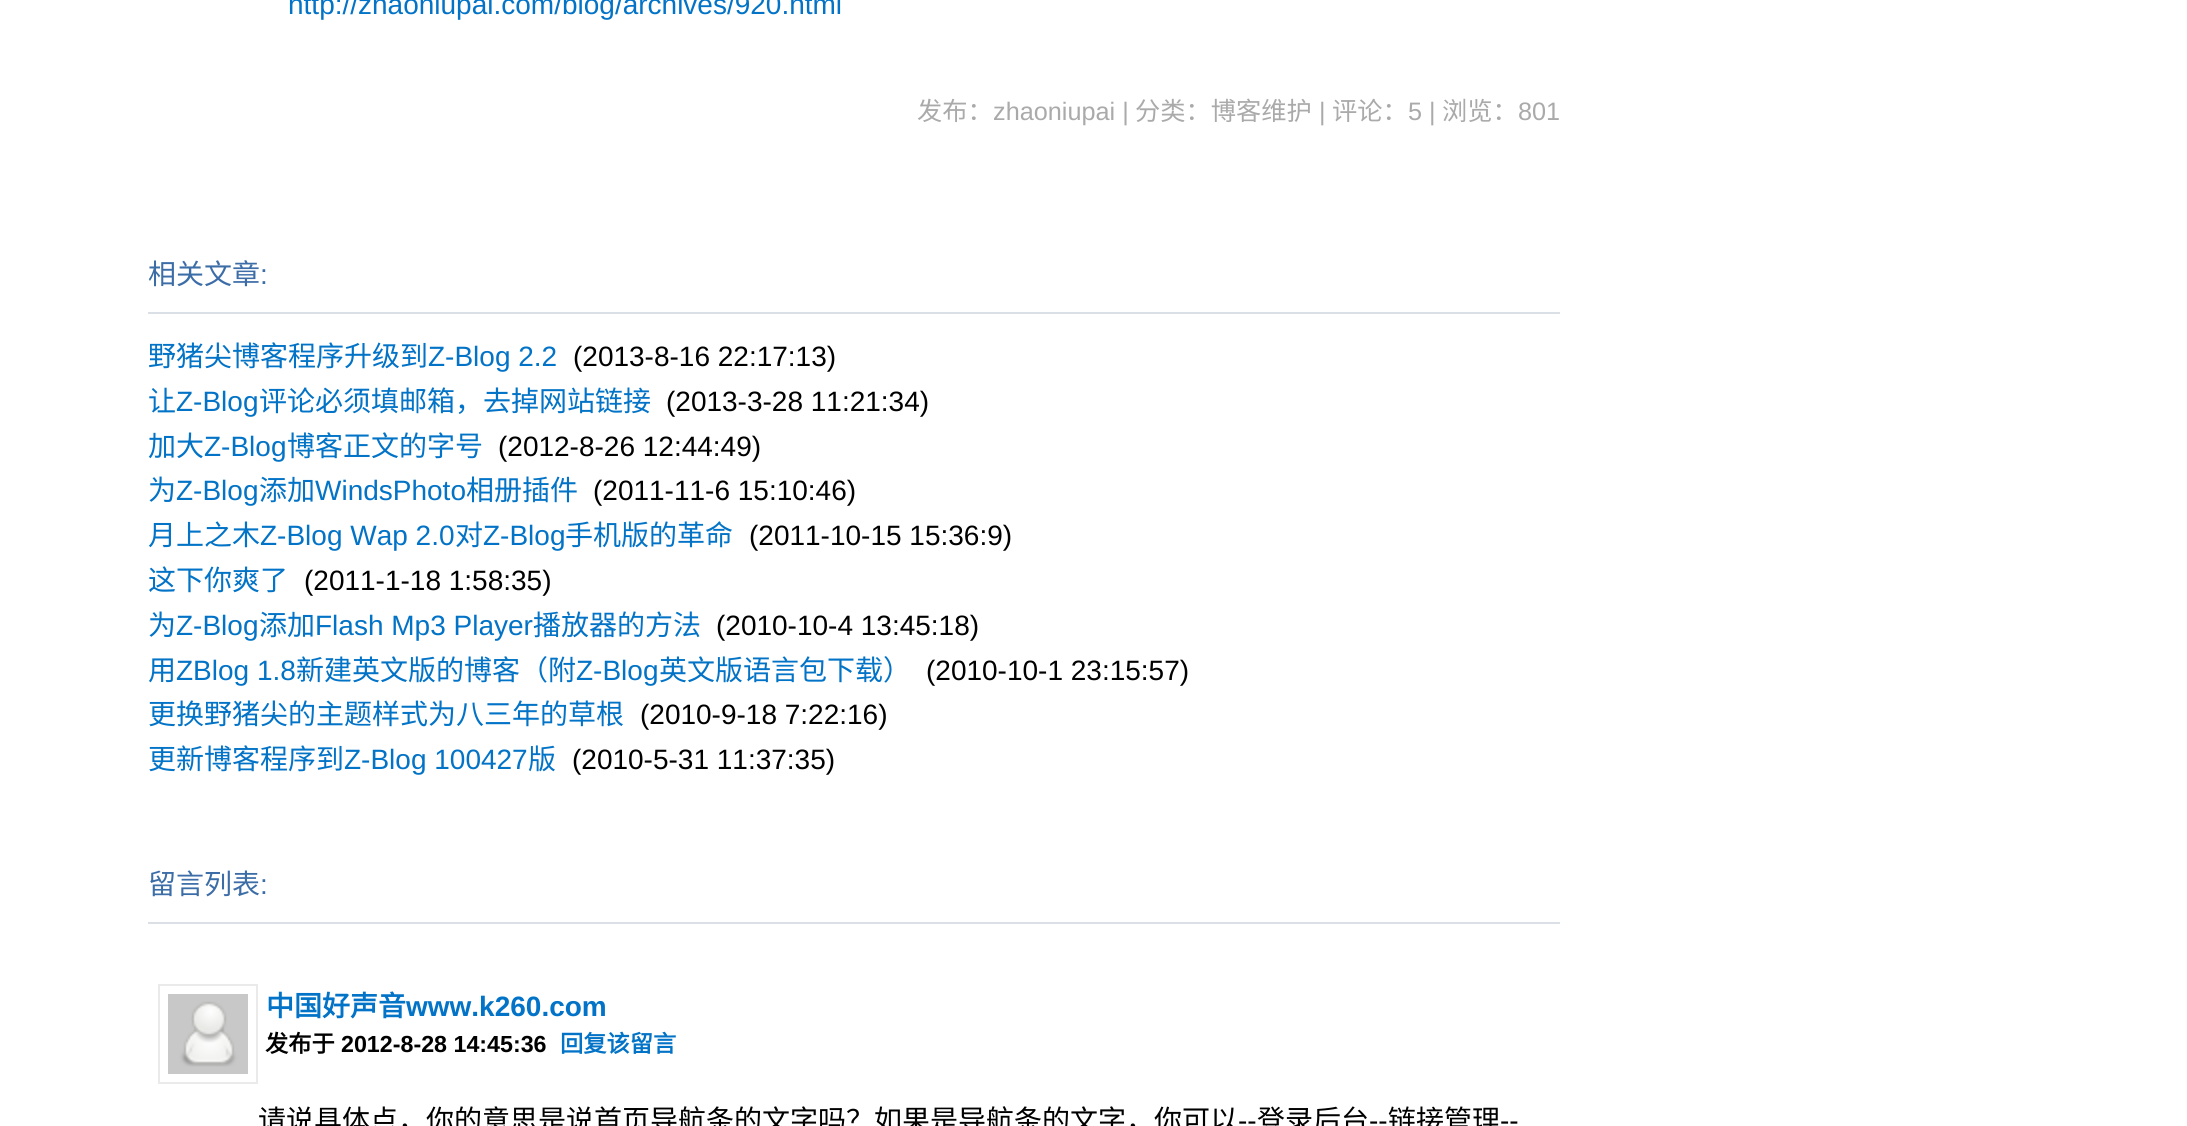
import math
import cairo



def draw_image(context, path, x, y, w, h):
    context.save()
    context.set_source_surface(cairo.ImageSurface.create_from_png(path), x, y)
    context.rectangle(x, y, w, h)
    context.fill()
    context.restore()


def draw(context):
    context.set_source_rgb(1, 1, 1)
    context.paint()
    context.set_source_rgb(219 / 255, 224 / 255, 230 / 255)
    context.rectangle(148, 312, 1412, 2)
    context.fill()
    context.rectangle(148, 922, 1412, 2)
    context.fill()
    context.rectangle(159, 985, 98, 98)
    context.set_source_rgb(234 / 255, 234 / 255, 234 / 255)
    context.stroke()
    draw_image(context, "images/1.png", 168, 994, 80, 80)
    context.select_font_face("Liberation Sans")
    context.set_font_size(28)
    context.set_source_rgb(2 / 255, 115 / 255, 198 / 255)
    context.move_to(288, 14)
    context.show_text("http://zhaoniupai.com/blog/archives/920.html")
    context.select_font_face("Noto Sans CJK SC")
    context.set_font_size(25.25)
    context.set_source_rgb(170 / 255, 170 / 255, 170 / 255)
    context.move_to(917, 120)
    context.show_text("发布：")
    context.select_font_face("Liberation Sans")
    context.move_to(993, 120)
    context.show_text("zhaoniupai |")
    context.select_font_face("Noto Sans CJK SC")
    context.move_to(1135, 120)
    context.show_text("分类：博客维护")
    context.select_font_face("Liberation Sans")
    context.move_to(1319, 120)
    context.show_text("|")
    context.select_font_face("Noto Sans CJK SC")
    context.move_to(1332, 120)
    context.show_text("评论：")
    context.select_font_face("Liberation Sans")
    context.move_to(1408, 120)
    context.show_text("5 |")
    context.select_font_face("Noto Sans CJK SC")
    context.move_to(1442, 120)
    context.show_text("浏览：")
    context.select_font_face("Liberation Sans")
    context.move_to(1518, 120)
    context.show_text("801")
    context.select_font_face("Noto Sans CJK SC")
    context.set_font_size(28)
    context.set_source_rgb(60 / 255, 109 / 255, 167 / 255)
    context.move_to(148, 284)
    context.show_text("相关文章")
    context.select_font_face("Liberation Sans")
    context.move_to(260, 284)
    context.show_text(":")
    context.select_font_face("Noto Sans CJK SC")
    context.set_source_rgb(2 / 255, 115 / 255, 198 / 255)
    context.move_to(148, 366)
    context.show_text("野猪尖博客程序升级到")
    context.select_font_face("Liberation Sans")
    context.move_to(428, 366)
    context.show_text("Z-Blog 2.2")
    context.set_source_rgb(0, 0, 0)
    context.move_to(573, 366)
    context.show_text("(2013-8-16 22:17:13)")
    context.select_font_face("Noto Sans CJK SC")
    context.set_source_rgb(2 / 255, 115 / 255, 198 / 255)
    context.move_to(148, 411)
    context.show_text("让")
    context.select_font_face("Liberation Sans")
    context.move_to(176, 411)
    context.show_text("Z-Blog")
    context.select_font_face("Noto Sans CJK SC")
    context.move_to(259, 411)
    context.show_text("评论必须填邮箱，去掉网站链接")
    context.select_font_face("Liberation Sans")
    context.set_source_rgb(0, 0, 0)
    context.move_to(666, 411)
    context.show_text("(2013-3-28 11:21:34)")
    context.select_font_face("Noto Sans CJK SC")
    context.set_source_rgb(2 / 255, 115 / 255, 198 / 255)
    context.move_to(148, 456)
    context.show_text("加大")
    context.select_font_face("Liberation Sans")
    context.move_to(204, 456)
    context.show_text("Z-Blog")
    context.select_font_face("Noto Sans CJK SC")
    context.move_to(287, 456)
    context.show_text("博客正文的字号")
    context.select_font_face("Liberation Sans")
    context.set_source_rgb(0, 0, 0)
    context.move_to(498, 456)
    context.show_text("(2012-8-26 12:44:49)")
    context.select_font_face("Noto Sans CJK SC")
    context.set_source_rgb(2 / 255, 115 / 255, 198 / 255)
    context.move_to(148, 500)
    context.show_text("为")
    context.select_font_face("Liberation Sans")
    context.move_to(176, 500)
    context.show_text("Z-Blog")
    context.select_font_face("Noto Sans CJK SC")
    context.move_to(259, 500)
    context.show_text("添加")
    context.select_font_face("Liberation Sans")
    context.move_to(315, 500)
    context.show_text("WindsPhoto")
    context.select_font_face("Noto Sans CJK SC")
    context.move_to(466, 500)
    context.show_text("相册插件")
    context.select_font_face("Liberation Sans")
    context.set_source_rgb(0, 0, 0)
    context.move_to(593, 500)
    context.show_text("(2011-11-6 15:10:46)")
    context.select_font_face("Noto Sans CJK SC")
    context.set_source_rgb(2 / 255, 115 / 255, 198 / 255)
    context.move_to(148, 545)
    context.show_text("月上之木")
    context.select_font_face("Liberation Sans")
    context.move_to(260, 545)
    context.show_text("Z-Blog Wap 2.0")
    context.select_font_face("Noto Sans CJK SC")
    context.move_to(455, 545)
    context.show_text("对")
    context.select_font_face("Liberation Sans")
    context.move_to(483, 545)
    context.show_text("Z-Blog")
    context.select_font_face("Noto Sans CJK SC")
    context.move_to(565, 545)
    context.show_text("手机版的革命")
    context.select_font_face("Liberation Sans")
    context.set_source_rgb(0, 0, 0)
    context.move_to(749, 545)
    context.show_text("(2011-10-15 15:36:9)")
    context.select_font_face("Noto Sans CJK SC")
    context.set_source_rgb(2 / 255, 115 / 255, 198 / 255)
    context.move_to(148, 590)
    context.show_text("这下你爽了")
    context.select_font_face("Liberation Sans")
    context.set_source_rgb(0, 0, 0)
    context.move_to(304, 590)
    context.show_text("(2011-1-18 1:58:35)")
    context.select_font_face("Noto Sans CJK SC")
    context.set_source_rgb(2 / 255, 115 / 255, 198 / 255)
    context.move_to(148, 635)
    context.show_text("为")
    context.select_font_face("Liberation Sans")
    context.move_to(176, 635)
    context.show_text("Z-Blog")
    context.select_font_face("Noto Sans CJK SC")
    context.move_to(259, 635)
    context.show_text("添加")
    context.select_font_face("Liberation Sans")
    context.move_to(315, 635)
    context.show_text("Flash Mp3 Player")
    context.select_font_face("Noto Sans CJK SC")
    context.move_to(533, 635)
    context.show_text("播放器的方法")
    context.select_font_face("Liberation Sans")
    context.set_source_rgb(0, 0, 0)
    context.move_to(716, 635)
    context.show_text("(2010-10-4 13:45:18)")
    context.select_font_face("Noto Sans CJK SC")
    context.set_source_rgb(2 / 255, 115 / 255, 198 / 255)
    context.move_to(148, 680)
    context.show_text("用")
    context.select_font_face("Liberation Sans")
    context.move_to(176, 680)
    context.show_text("ZBlog 1.8")
    context.select_font_face("Noto Sans CJK SC")
    context.move_to(296, 680)
    context.show_text("新建英文版的博客（附")
    context.select_font_face("Liberation Sans")
    context.move_to(576, 680)
    context.show_text("Z-Blog")
    context.select_font_face("Noto Sans CJK SC")
    context.move_to(659, 680)
    context.show_text("英文版语言包下载）")
    context.select_font_face("Liberation Sans")
    context.set_source_rgb(0, 0, 0)
    context.move_to(926, 680)
    context.show_text("(2010-10-1 23:15:57)")
    context.select_font_face("Noto Sans CJK SC")
    context.set_source_rgb(2 / 255, 115 / 255, 198 / 255)
    context.move_to(148, 724)
    context.show_text("更换野猪尖的主题样式为八三年的草根")
    context.select_font_face("Liberation Sans")
    context.set_source_rgb(0, 0, 0)
    context.move_to(640, 724)
    context.show_text("(2010-9-18 7:22:16)")
    context.select_font_face("Noto Sans CJK SC")
    context.set_source_rgb(2 / 255, 115 / 255, 198 / 255)
    context.move_to(148, 769)
    context.show_text("更新博客程序到")
    context.select_font_face("Liberation Sans")
    context.move_to(344, 769)
    context.show_text("Z-Blog 100427")
    context.select_font_face("Noto Sans CJK SC")
    context.move_to(528, 769)
    context.show_text("版")
    context.select_font_face("Liberation Sans")
    context.set_source_rgb(0, 0, 0)
    context.move_to(572, 769)
    context.show_text("(2010-5-31 11:37:35)")
    context.select_font_face("Noto Sans CJK SC")
    context.set_source_rgb(60 / 255, 109 / 255, 167 / 255)
    context.move_to(148, 894)
    context.show_text("留言列表")
    context.select_font_face("Liberation Sans")
    context.move_to(260, 894)
    context.show_text(":")
    context.select_font_face("Noto Sans CJK SC", cairo.FontSlant.NORMAL, cairo.FontWeight.BOLD)
    context.set_source_rgb(2 / 255, 115 / 255, 198 / 255)
    context.move_to(266, 1016)
    context.show_text("中国好声音")
    context.select_font_face("Liberation Sans", cairo.FontSlant.NORMAL, cairo.FontWeight.BOLD)
    context.move_to(406, 1016)
    context.show_text("www.k260.com")
    context.select_font_face("Noto Sans CJK SC", cairo.FontSlant.NORMAL, cairo.FontWeight.BOLD)
    context.set_font_size(23.25)
    context.set_source_rgb(0, 0, 0)
    context.move_to(265, 1052)
    context.show_text("发布于")
    context.select_font_face("Liberation Sans", cairo.FontSlant.NORMAL, cairo.FontWeight.BOLD)
    context.move_to(341, 1052)
    context.show_text("2012-8-28 14:45:36")
    context.select_font_face("Noto Sans CJK SC", cairo.FontSlant.NORMAL, cairo.FontWeight.BOLD)
    context.set_source_rgb(2 / 255, 115 / 255, 198 / 255)
    context.move_to(560, 1052)
    context.show_text("回复该留言")
    context.select_font_face("Noto Sans CJK SC")
    context.set_font_size(28)
    context.set_source_rgb(0, 0, 0)
    context.move_to(258, 1130)
    context.show_text("请说具体点，你的意思是说首页导航条的文字吗？如果是导航条的文字，你可以")
    context.select_font_face("Liberation Sans")
    context.move_to(1238, 1130)
    context.show_text("--")
    context.select_font_face("Noto Sans CJK SC")
    context.move_to(1257, 1130)
    context.show_text("登录后台")
    context.select_font_face("Liberation Sans")
    context.move_to(1369, 1130)
    context.show_text("--")
    context.select_font_face("Noto Sans CJK SC")
    context.move_to(1388, 1130)
    context.show_text("链接管理")
    context.select_font_face("Liberation Sans")
    context.move_to(1500, 1130)
    context.show_text("--")


surface = cairo.ImageSurface(cairo.Format.RGB24, 2187, 1126)
context = cairo.Context(surface)
options = cairo.FontOptions()
options.set_hint_metrics(cairo.HintMetrics.OFF)
options.set_hint_style(cairo.HintStyle.NONE)
context.set_font_options(options)
context.set_miter_limit(4)
draw(context)
surface.write_to_png("out.png")
